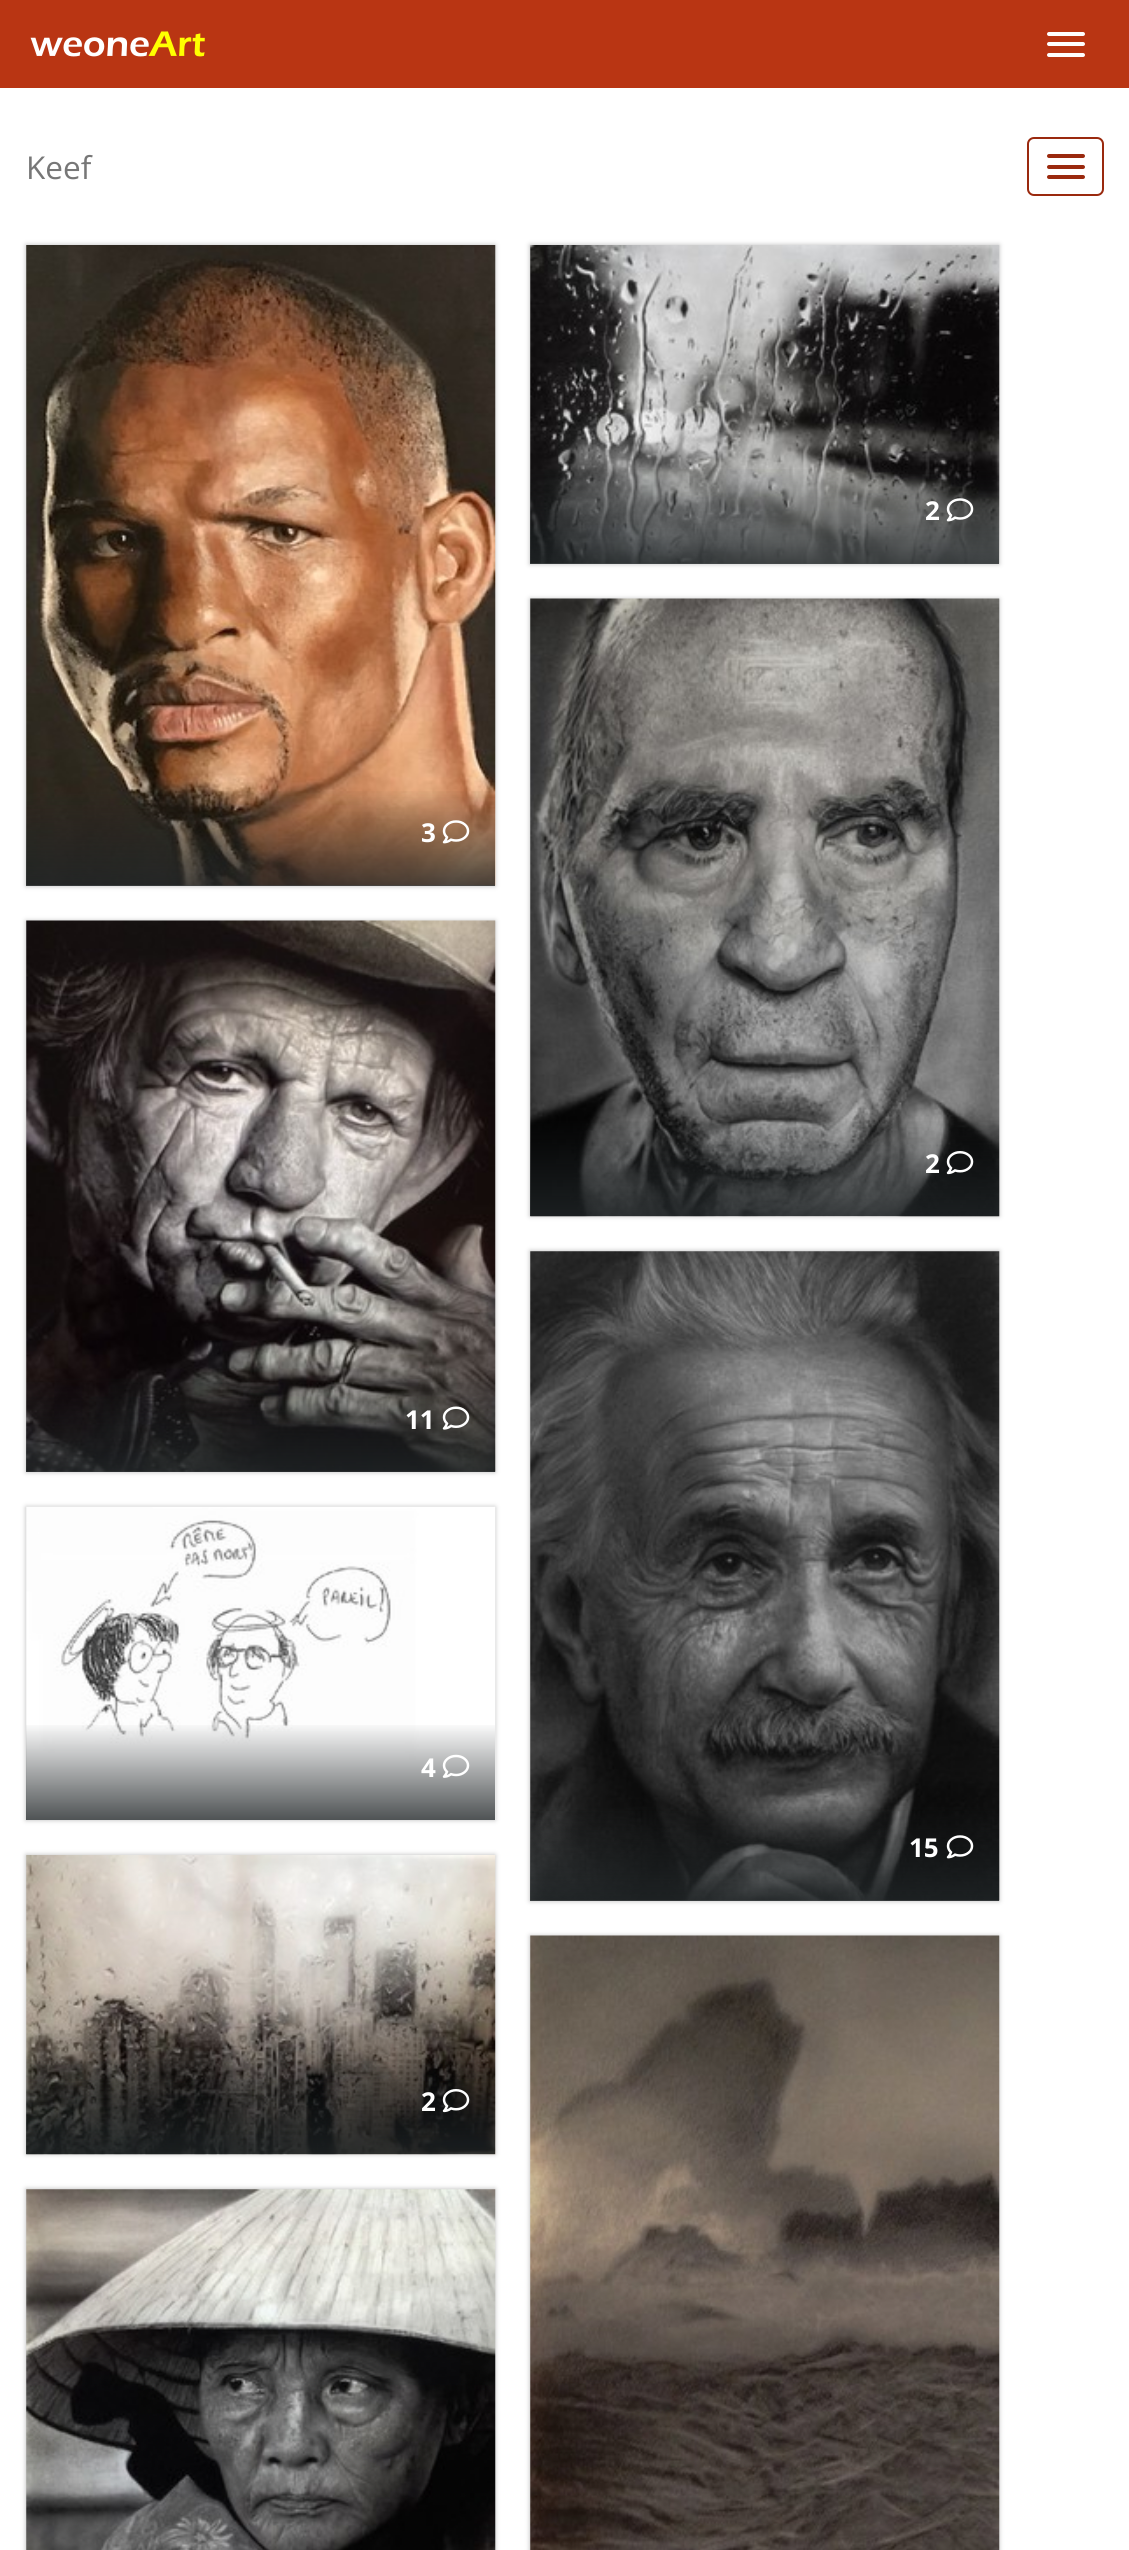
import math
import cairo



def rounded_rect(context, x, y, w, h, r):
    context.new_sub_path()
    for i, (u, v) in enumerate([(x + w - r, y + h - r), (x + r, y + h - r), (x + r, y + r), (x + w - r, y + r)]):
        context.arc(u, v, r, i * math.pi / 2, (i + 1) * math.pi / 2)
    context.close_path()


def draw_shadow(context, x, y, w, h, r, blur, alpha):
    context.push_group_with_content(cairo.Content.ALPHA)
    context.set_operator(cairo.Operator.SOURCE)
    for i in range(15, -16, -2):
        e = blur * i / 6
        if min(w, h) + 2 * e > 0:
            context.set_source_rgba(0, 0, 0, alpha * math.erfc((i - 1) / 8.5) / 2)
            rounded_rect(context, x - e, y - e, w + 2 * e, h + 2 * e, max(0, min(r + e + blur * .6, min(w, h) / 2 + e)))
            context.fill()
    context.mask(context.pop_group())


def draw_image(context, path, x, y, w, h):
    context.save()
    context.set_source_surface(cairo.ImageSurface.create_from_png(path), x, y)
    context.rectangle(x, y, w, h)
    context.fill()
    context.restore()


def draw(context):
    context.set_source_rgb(1, 1, 1)
    context.paint()
    context.set_source_rgb(185 / 255, 53 / 255, 19 / 255)
    context.rectangle(0, 0, 1129, 88)
    context.fill()
    draw_image(context, "images/1.png", 30, 31, 175, 26)
    context.set_source_rgb(1, 1, 1)
    rounded_rect(context, 1047, 32, 38, 4, 2)
    context.fill()
    rounded_rect(context, 1047, 42, 38, 4, 2)
    context.fill()
    rounded_rect(context, 1047, 53, 38, 4, 2)
    context.fill()
    rounded_rect(context, 1028, 138, 75, 57, 6)
    context.set_source_rgb(154 / 255, 41 / 255, 14 / 255)
    context.stroke()
    rounded_rect(context, 1047, 154, 38, 4, 2)
    context.fill()
    rounded_rect(context, 1047, 165, 38, 4, 2)
    context.fill()
    rounded_rect(context, 1047, 175, 38, 4, 2)
    context.fill()
    context.set_source_rgb(187 / 255, 187 / 255, 187 / 255)
    draw_shadow(context, 530, 245, 469, 319, 0, 2.5, 1)
    draw_image(context, "images/2.png", 530, 245, 470, 319)
    gradient = cairo.LinearGradient(765, 466, 765, 564)
    gradient.add_color_stop_rgba(0, 32 / 255, 37 / 255, 39 / 255, 0)
    gradient.add_color_stop_rgba(1, 32 / 255, 37 / 255, 39 / 255, 0.79)
    context.set_source(gradient)
    context.rectangle(530, 469, 469, 95)
    context.fill()
    draw_image(context, "images/3.png", 946, 498, 28, 24)
    context.set_source_rgb(187 / 255, 187 / 255, 187 / 255)
    draw_shadow(context, 26, 245, 469, 641, 0, 2.5, 1)
    draw_image(context, "images/4.png", 26, 245, 470, 641)
    gradient = cairo.LinearGradient(261, 788, 261, 886)
    gradient.add_color_stop_rgba(0, 32 / 255, 37 / 255, 39 / 255, 0)
    gradient.add_color_stop_rgba(1, 32 / 255, 37 / 255, 39 / 255, 0.79)
    context.set_source(gradient)
    context.rectangle(26, 791, 469, 95)
    context.fill()
    draw_image(context, "images/5.png", 442, 820, 28, 24)
    context.set_source_rgb(187 / 255, 187 / 255, 187 / 255)
    draw_shadow(context, 530, 599, 469, 617, 0, 2.5, 1)
    draw_image(context, "images/6.png", 530, 598, 470, 619)
    gradient = cairo.LinearGradient(765, 1118, 765, 1216)
    gradient.add_color_stop_rgba(0, 32 / 255, 37 / 255, 39 / 255, 0)
    gradient.add_color_stop_rgba(1, 32 / 255, 37 / 255, 39 / 255, 0.79)
    context.set_source(gradient)
    context.rectangle(530, 1121, 469, 95)
    context.fill()
    draw_image(context, "images/7.png", 946, 1151, 28, 24)
    context.set_source_rgb(187 / 255, 187 / 255, 187 / 255)
    draw_shadow(context, 26, 921, 469, 551, 0, 2.5, 1)
    draw_image(context, "images/8.png", 26, 920, 470, 552)
    gradient = cairo.LinearGradient(261, 1374, 261, 1472)
    gradient.add_color_stop_rgba(0, 32 / 255, 37 / 255, 39 / 255, 0)
    gradient.add_color_stop_rgba(1, 32 / 255, 37 / 255, 39 / 255, 0.79)
    context.set_source(gradient)
    context.rectangle(26, 1378, 469, 94)
    context.fill()
    draw_image(context, "images/9.png", 442, 1406, 28, 24)
    context.set_source_rgb(187 / 255, 187 / 255, 187 / 255)
    draw_shadow(context, 26, 1507, 469, 313, 0, 2.5, 1)
    draw_image(context, "images/10.png", 26, 1506, 470, 314)
    gradient = cairo.LinearGradient(261, 1722, 261, 1820)
    gradient.add_color_stop_rgba(0, 32 / 255, 37 / 255, 39 / 255, 0)
    gradient.add_color_stop_rgba(1, 32 / 255, 37 / 255, 39 / 255, 0.79)
    context.set_source(gradient)
    context.rectangle(26, 1725, 469, 95)
    context.fill()
    draw_image(context, "images/11.png", 442, 1754, 28, 24)
    context.set_source_rgb(187 / 255, 187 / 255, 187 / 255)
    draw_shadow(context, 530, 1251, 469, 650, 0, 2.5, 1)
    draw_image(context, "images/12.png", 530, 1251, 470, 650)
    gradient = cairo.LinearGradient(765, 1803, 765, 1901)
    gradient.add_color_stop_rgba(0, 32 / 255, 37 / 255, 39 / 255, 0)
    gradient.add_color_stop_rgba(1, 32 / 255, 37 / 255, 39 / 255, 0.79)
    context.set_source(gradient)
    context.rectangle(530, 1807, 469, 94)
    context.fill()
    draw_image(context, "images/13.png", 946, 1835, 28, 24)
    context.set_source_rgb(187 / 255, 187 / 255, 187 / 255)
    draw_shadow(context, 26, 1855, 469, 299, 0, 2.5, 1)
    draw_image(context, "images/14.png", 26, 1855, 470, 300)
    gradient = cairo.LinearGradient(261, 2056, 261, 2154)
    gradient.add_color_stop_rgba(0, 32 / 255, 37 / 255, 39 / 255, 0)
    gradient.add_color_stop_rgba(1, 32 / 255, 37 / 255, 39 / 255, 0.79)
    context.set_source(gradient)
    context.rectangle(26, 2059, 469, 95)
    context.fill()
    draw_image(context, "images/15.png", 442, 2089, 28, 24)
    context.set_source_rgb(187 / 255, 187 / 255, 187 / 255)
    draw_shadow(context, 530, 1936, 469, 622, 0, 2.5, 1)
    draw_image(context, "images/16.png", 530, 1935, 470, 615)
    draw_shadow(context, 26, 2189, 469, 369, 0, 2.5, 1)
    draw_image(context, "images/17.png", 26, 2189, 470, 361)
    context.select_font_face("Open Sans")
    context.set_font_size(31.5)
    context.set_source_rgb(119 / 255, 119 / 255, 119 / 255)
    context.move_to(26, 179)
    context.show_text("Keef")
    context.select_font_face("Open Sans", cairo.FontSlant.NORMAL, cairo.FontWeight.BOLD)
    context.set_font_size(26)
    context.set_source_rgb(1, 1, 1)
    context.move_to(925, 520)
    context.show_text("2")
    context.move_to(421, 842)
    context.show_text("3")
    context.move_to(925, 1173)
    context.show_text("2")
    context.move_to(405, 1429)
    context.show_text("11")
    context.move_to(421, 1777)
    context.show_text("4")
    context.move_to(909, 1857)
    context.show_text("15")
    context.move_to(421, 2111)
    context.show_text("2")


surface = cairo.ImageSurface(cairo.Format.RGB24, 1129, 2550)
context = cairo.Context(surface)
options = cairo.FontOptions()
options.set_hint_metrics(cairo.HintMetrics.OFF)
options.set_hint_style(cairo.HintStyle.NONE)
context.set_font_options(options)
context.set_miter_limit(4)
draw(context)
surface.write_to_png("out.png")
